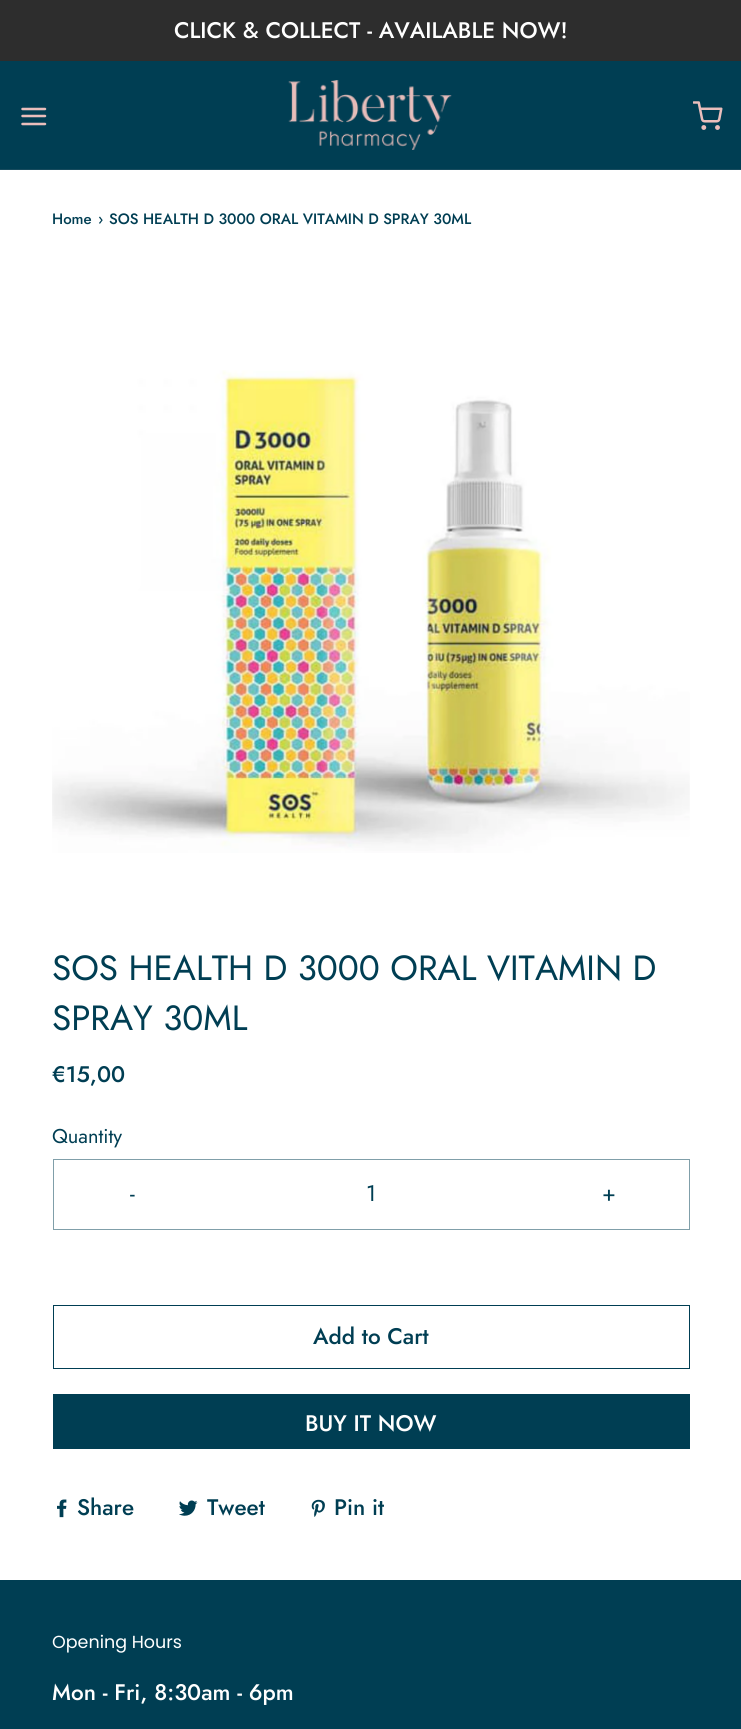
import math
import cairo



def draw_image(context, path, x, y, w, h):
    context.save()
    context.set_source_surface(cairo.ImageSurface.create_from_png(path), x, y)
    context.rectangle(x, y, w, h)
    context.fill()
    context.restore()


def draw(context):
    context.set_source_rgb(1, 1, 1)
    context.paint()
    context.set_source_rgb(45 / 255, 45 / 255, 45 / 255)
    context.rectangle(0, 0, 741, 61)
    context.fill()
    context.set_source_rgb(0, 62 / 255, 83 / 255)
    context.rectangle(0, 61, 741, 108)
    context.fill()
    context.set_source_rgb(23 / 255, 75 / 255, 94 / 255)
    context.rectangle(0, 169, 741, 1)
    context.fill()
    context.new_path()
    context.move_to(22.5, 116)
    context.line_to(45, 116)
    context.move_to(22.5, 109)
    context.line_to(45, 109)
    context.move_to(22.5, 124)
    context.line_to(45, 124)
    context.set_source_rgb(234 / 255, 190 / 255, 188 / 255)
    context.set_line_width(2.5)
    context.set_line_cap(cairo.LineCap.ROUND)
    context.set_line_join(cairo.LineJoin.ROUND)
    context.stroke()
    draw_image(context, "images/1.png", 288, 80, 164, 70)
    draw_image(context, "images/2.png", 693, 101, 30, 29)
    draw_image(context, "images/3.png", 52, 370, 638, 483)
    context.rectangle(53.5, 1159.5, 636, 70)
    context.set_source_rgb(128 / 255, 159 / 255, 169 / 255)
    context.set_line_width(1)
    context.set_line_cap(cairo.LineCap.BUTT)
    context.set_line_join(cairo.LineJoin.MITER)
    context.stroke()
    context.rectangle(53.5, 1305.5, 636, 63)
    context.set_source_rgb(0, 62 / 255, 83 / 255)
    context.stroke()
    context.rectangle(53, 1394, 637, 55)
    context.fill()
    draw_image(context, "images/4.png", 57, 1499, 10, 19)
    draw_image(context, "images/5.png", 179, 1500, 19, 16)
    draw_image(context, "images/6.png", 311, 1499, 14, 18)
    context.rectangle(0, 1580, 741, 149)
    context.fill()
    context.select_font_face("Jost Medium")
    context.set_font_size(22.5)
    context.set_source_rgb(1, 1, 1)
    context.move_to(174, 38)
    context.show_text("CLICK & COLLECT - AVAILABLE NOW!")
    context.set_font_size(15)
    context.set_source_rgb(0, 62 / 255, 83 / 255)
    context.move_to(52, 224)
    context.show_text("Home")
    context.move_to(98, 224)
    context.show_text("›")
    context.move_to(109, 224)
    context.show_text("SOS HEALTH D 3000 ORAL VITAMIN D SPRAY 30ML")
    context.select_font_face("Jost")
    context.set_font_size(35)
    context.move_to(52, 980)
    context.show_text("SOS HEALTH D 3000 ORAL VITAMIN D")
    context.move_to(52, 1030)
    context.show_text("SPRAY 30ML")
    context.select_font_face("Jost Medium")
    context.set_font_size(22.5)
    context.move_to(52, 1082)
    context.show_text("€15,00")
    context.select_font_face("Jost")
    context.set_font_size(20)
    context.move_to(52, 1143)
    context.show_text("Quantity")
    context.set_font_size(22.5)
    context.move_to(130, 1201)
    context.show_text("-")
    context.move_to(366, 1201)
    context.show_text("1")
    context.move_to(602, 1201)
    context.show_text("+")
    context.select_font_face("Jost Medium")
    context.move_to(313, 1344)
    context.show_text("Add to Cart")
    context.set_source_rgb(1, 1, 1)
    context.move_to(305, 1431)
    context.show_text("BUY IT NOW")
    context.set_source_rgb(0, 62 / 255, 83 / 255)
    context.move_to(77, 1515)
    context.show_text("Share")
    context.move_to(207, 1515)
    context.show_text("Tweet")
    context.move_to(334, 1515)
    context.show_text("Pin it")
    context.select_font_face("Poppins")
    context.set_font_size(17.5)
    context.set_source_rgb(1, 1, 1)
    context.move_to(52, 1648)
    context.show_text("Opening Hours")
    context.select_font_face("Jost Medium")
    context.set_font_size(22.5)
    context.move_to(52, 1700)
    context.show_text("Mon - Fri, 8:30am - 6pm")


surface = cairo.ImageSurface(cairo.Format.RGB24, 741, 1729)
context = cairo.Context(surface)
options = cairo.FontOptions()
options.set_hint_metrics(cairo.HintMetrics.OFF)
options.set_hint_style(cairo.HintStyle.NONE)
context.set_font_options(options)
context.set_miter_limit(4)
draw(context)
surface.write_to_png("out.png")
